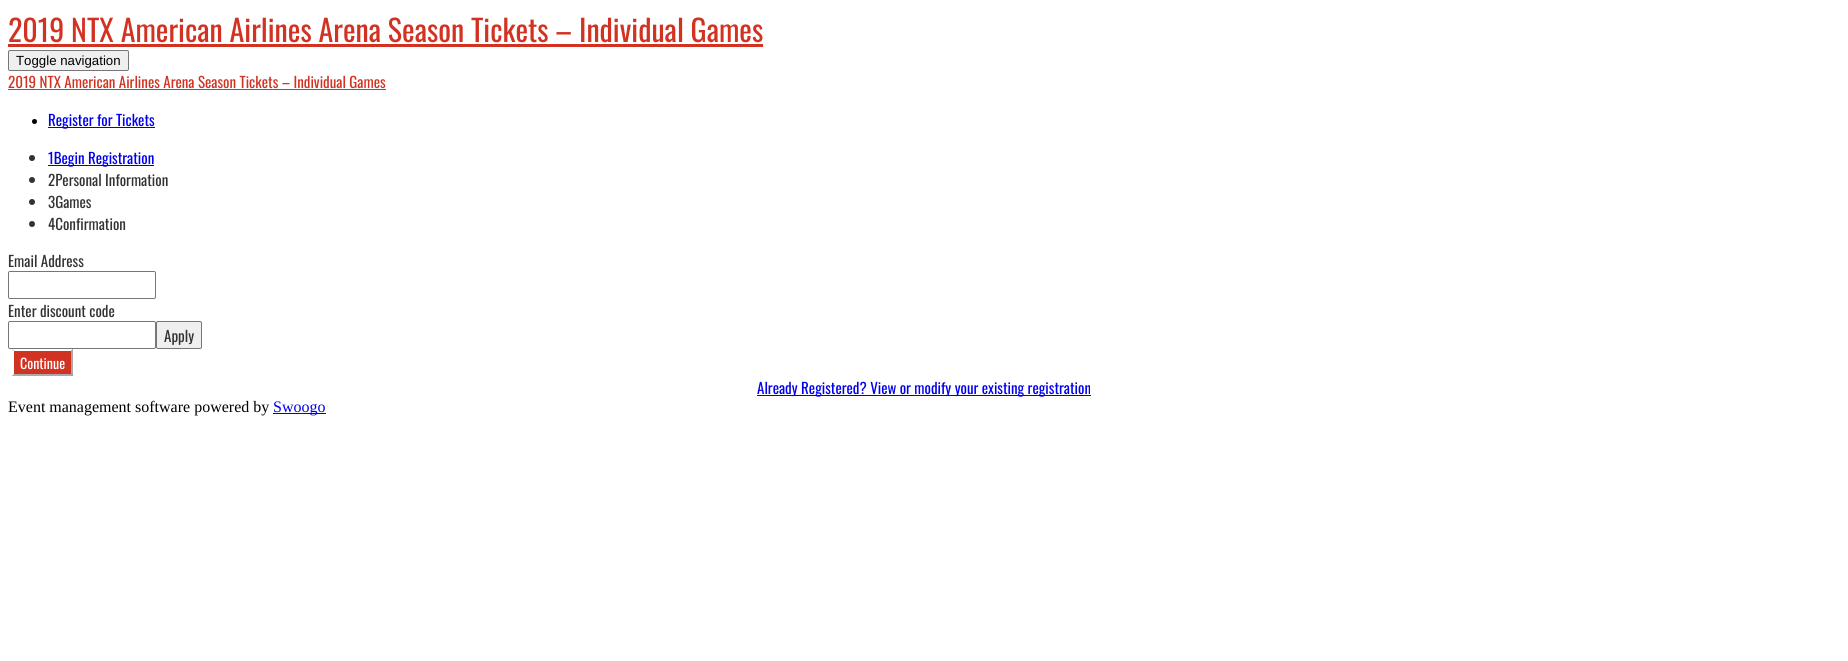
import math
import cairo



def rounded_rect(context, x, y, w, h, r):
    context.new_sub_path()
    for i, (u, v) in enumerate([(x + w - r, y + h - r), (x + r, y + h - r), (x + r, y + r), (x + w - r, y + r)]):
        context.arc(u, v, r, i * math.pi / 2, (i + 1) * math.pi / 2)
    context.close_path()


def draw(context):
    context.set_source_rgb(1, 1, 1)
    context.paint()
    context.set_source_rgb(210 / 255, 50 / 255, 33 / 255)
    context.rectangle(8, 44, 755, 3)
    context.fill()
    context.set_source_rgb(239 / 255, 239 / 255, 239 / 255)
    rounded_rect(context, 8.5, 50.5, 120, 20, 1.5)
    context.fill_preserve()
    context.set_source_rgb(118 / 255, 118 / 255, 118 / 255)
    context.set_line_width(1)
    context.stroke()
    context.set_source_rgb(210 / 255, 50 / 255, 33 / 255)
    context.rectangle(8, 89, 378, 1)
    context.fill()
    context.set_source_rgb(0, 0, 0)
    context.arc(34.5, 121.5, 2.5, 0, 2 * math.pi)
    context.fill()
    context.set_source_rgb(0, 0, 238 / 255)
    context.rectangle(48, 127, 107, 1)
    context.fill()
    context.set_source_rgb(51 / 255, 51 / 255, 51 / 255)
    context.arc(32, 158, 3, 0, 2 * math.pi)
    context.fill()
    context.set_source_rgb(0, 0, 238 / 255)
    context.rectangle(48, 165, 106, 1)
    context.fill()
    context.set_source_rgb(51 / 255, 51 / 255, 51 / 255)
    context.arc(32, 180, 3, 0, 2 * math.pi)
    context.fill()
    context.arc(32, 202, 3, 0, 2 * math.pi)
    context.fill()
    context.arc(32, 224, 3, 0, 2 * math.pi)
    context.fill()
    rounded_rect(context, 8.5, 271.5, 147, 27, 1.5)
    context.set_source_rgb(118 / 255, 118 / 255, 118 / 255)
    context.stroke()
    rounded_rect(context, 8.5, 321.5, 147, 27, 1.5)
    context.stroke()
    context.set_source_rgb(239 / 255, 239 / 255, 239 / 255)
    rounded_rect(context, 156.5, 321.5, 45, 27, 1.5)
    context.fill_preserve()
    context.set_source_rgb(118 / 255, 118 / 255, 118 / 255)
    context.stroke()
    context.set_source_rgb(210 / 255, 50 / 255, 33 / 255)
    context.rectangle(12, 349, 61, 27)
    context.fill()
    context.set_source_rgb(1, 1, 1)
    context.new_path()
    context.move_to(12, 349)
    context.line_to(73, 349)
    context.line_to(71, 351)
    context.line_to(14, 351)
    context.close_path()
    context.fill()
    context.set_source_rgb(170 / 255, 170 / 255, 170 / 255)
    context.new_path()
    context.move_to(73, 349)
    context.line_to(73, 376)
    context.line_to(71, 374)
    context.line_to(71, 351)
    context.close_path()
    context.fill()
    context.new_path()
    context.move_to(73, 376)
    context.line_to(12, 376)
    context.line_to(14, 374)
    context.line_to(71, 374)
    context.close_path()
    context.fill()
    context.set_source_rgb(1, 1, 1)
    context.new_path()
    context.move_to(12, 376)
    context.line_to(12, 349)
    context.line_to(14, 351)
    context.line_to(14, 374)
    context.close_path()
    context.fill()
    context.set_source_rgb(0, 0, 238 / 255)
    context.rectangle(757, 395, 334, 1)
    context.fill()
    context.rectangle(273, 413, 53, 1)
    context.fill()
    context.select_font_face("Oswald")
    context.set_font_size(30)
    context.set_source_rgb(210 / 255, 50 / 255, 33 / 255)
    context.move_to(8, 42)
    context.show_text("2019 NTX American Airlines Arena Season Tickets – Individual Games")
    context.select_font_face("Liberation Sans")
    context.set_font_size(13.25)
    context.set_source_rgb(0, 0, 0)
    context.move_to(16, 65)
    context.show_text("Toggle navigation")
    context.select_font_face("Oswald")
    context.set_font_size(15)
    context.set_source_rgb(210 / 255, 50 / 255, 33 / 255)
    context.move_to(8, 88)
    context.show_text("2019 NTX American Airlines Arena Season Tickets – Individual Games")
    context.set_source_rgb(0, 0, 238 / 255)
    context.move_to(48, 126)
    context.show_text("Register for Tickets")
    context.move_to(48, 164)
    context.show_text("1Begin Registration")
    context.set_source_rgb(51 / 255, 51 / 255, 51 / 255)
    context.move_to(48, 186)
    context.show_text("2Personal Information")
    context.move_to(48, 208)
    context.show_text("3Games")
    context.move_to(48, 230)
    context.show_text("4Confirmation")
    context.move_to(8, 267)
    context.show_text("Email Address")
    context.move_to(8, 317)
    context.show_text("Enter discount code")
    context.move_to(164, 342)
    context.show_text("Apply")
    context.set_font_size(14)
    context.set_source_rgb(1, 1, 1)
    context.move_to(20, 369)
    context.show_text("Continue")
    context.set_font_size(15)
    context.set_source_rgb(0, 0, 238 / 255)
    context.move_to(757, 394)
    context.show_text("Already Registered? View or modify your existing registration")
    context.select_font_face("Liberation Serif")
    context.set_font_size(16)
    context.set_source_rgb(0, 0, 0)
    context.move_to(8, 412)
    context.show_text("Event management software powered by")
    context.set_source_rgb(0, 0, 238 / 255)
    context.move_to(273, 412)
    context.show_text("Swoogo")


surface = cairo.ImageSurface(cairo.Format.RGB24, 1848, 661)
context = cairo.Context(surface)
options = cairo.FontOptions()
options.set_hint_metrics(cairo.HintMetrics.OFF)
options.set_hint_style(cairo.HintStyle.NONE)
context.set_font_options(options)
context.set_miter_limit(4)
draw(context)
surface.write_to_png("out.png")
